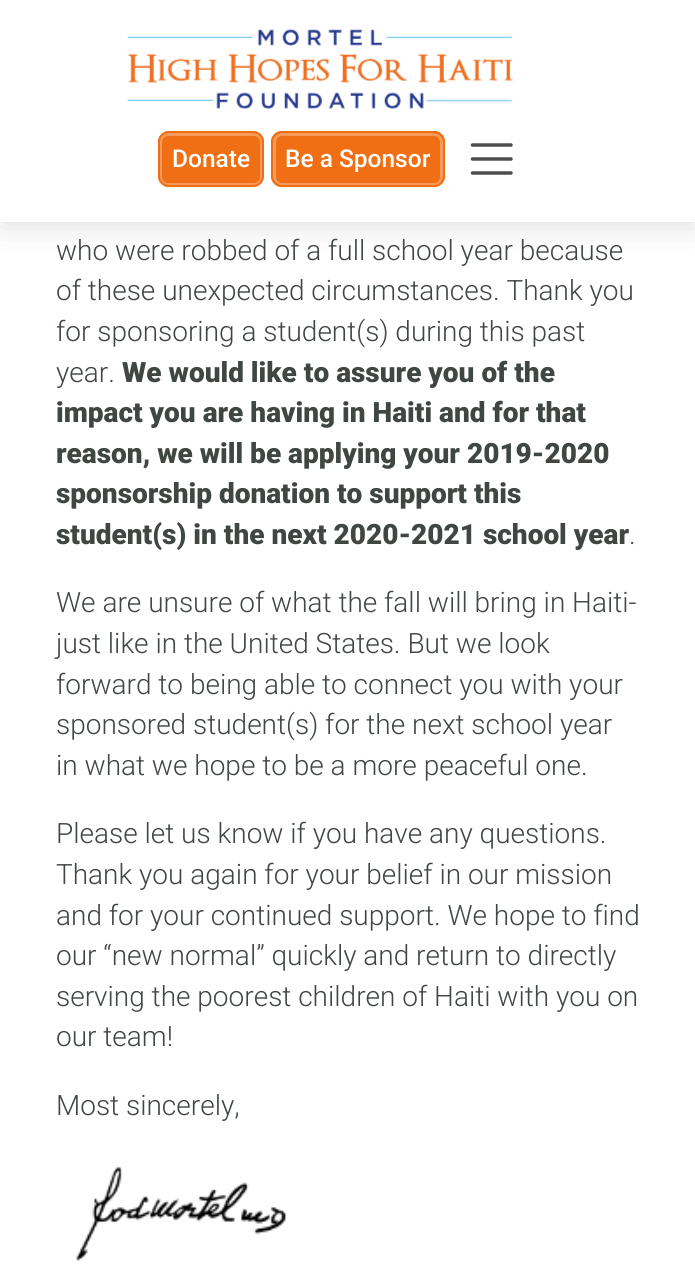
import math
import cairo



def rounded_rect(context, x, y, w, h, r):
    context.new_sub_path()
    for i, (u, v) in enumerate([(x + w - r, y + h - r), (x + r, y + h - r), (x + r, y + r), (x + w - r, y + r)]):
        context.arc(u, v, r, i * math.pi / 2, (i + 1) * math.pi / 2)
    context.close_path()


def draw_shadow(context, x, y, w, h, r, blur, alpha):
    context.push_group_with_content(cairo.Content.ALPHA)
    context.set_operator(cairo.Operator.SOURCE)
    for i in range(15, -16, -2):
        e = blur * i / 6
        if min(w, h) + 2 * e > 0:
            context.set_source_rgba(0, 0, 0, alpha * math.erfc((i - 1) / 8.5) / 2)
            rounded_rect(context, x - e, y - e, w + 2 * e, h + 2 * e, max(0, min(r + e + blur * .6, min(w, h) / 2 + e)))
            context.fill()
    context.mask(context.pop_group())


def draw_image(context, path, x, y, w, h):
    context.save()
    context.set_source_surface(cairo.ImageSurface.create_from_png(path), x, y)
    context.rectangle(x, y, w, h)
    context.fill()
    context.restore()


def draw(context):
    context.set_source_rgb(1, 1, 1)
    context.paint()
    context.set_source_rgb(0, 0, 0)
    draw_shadow(context, 0, 0, 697, 222, 0, 17.5, 0.15)
    context.set_source_rgb(1, 1, 1)
    context.rectangle(0, 0, 695, 222)
    context.fill()
    draw_image(context, "images/1.png", 127, 29, 386, 80)
    context.set_source_rgb(240 / 255, 111 / 255, 20 / 255)
    rounded_rect(context, 158, 131, 106, 56, 11)
    context.fill()
    rounded_rect(context, 160.5, 134.5, 101, 50, 7.5)
    context.set_source_rgb(245 / 255, 154 / 255, 91 / 255)
    context.set_line_width(3)
    context.stroke()
    rounded_rect(context, 159, 132, 104, 54, 10)
    context.set_source_rgb(240 / 255, 111 / 255, 20 / 255)
    context.set_line_width(2)
    context.stroke()
    rounded_rect(context, 271, 131, 174, 56, 11)
    context.fill()
    rounded_rect(context, 274.5, 134.5, 167, 50, 7.5)
    context.set_source_rgb(245 / 255, 154 / 255, 91 / 255)
    context.set_line_width(3)
    context.stroke()
    rounded_rect(context, 272, 132, 172, 54, 10)
    context.set_source_rgb(240 / 255, 111 / 255, 20 / 255)
    context.set_line_width(2)
    context.stroke()
    context.new_path()
    context.move_to(472.5, 145)
    context.line_to(511, 145)
    context.move_to(472.5, 159)
    context.line_to(511, 159)
    context.move_to(472.5, 173)
    context.line_to(511, 173)
    context.set_source_rgb(77 / 255, 77 / 255, 77 / 255)
    context.set_line_width(3.5)
    context.set_line_cap(cairo.LineCap.ROUND)
    context.stroke()
    draw_image(context, "images/2.png", 76, 1166, 211, 95)
    context.select_font_face("Roboto Medium")
    context.set_font_size(24.5)
    context.set_source_rgb(1, 1, 1)
    context.move_to(172, 167)
    context.show_text("Donate")
    context.move_to(285, 167)
    context.show_text("Be a Sponsor")
    context.select_font_face("Roboto Light")
    context.set_font_size(28)
    context.set_source_rgb(64 / 255, 70 / 255, 66 / 255)
    context.move_to(56, 260)
    context.show_text("who were robbed of a full school year because")
    context.move_to(56, 300)
    context.show_text("of these unexpected circumstances. Thank you")
    context.move_to(56, 341)
    context.show_text("for sponsoring a student(s) during this past")
    context.move_to(56, 382)
    context.show_text("year.")
    context.select_font_face("Roboto Black")
    context.move_to(122, 382)
    context.show_text("We would like to assure you of the")
    context.move_to(56, 422)
    context.show_text("impact you are having in Haiti and for that")
    context.move_to(56, 463)
    context.show_text("reason, we will be applying your 2019-2020")
    context.move_to(56, 503)
    context.show_text("sponsorship donation to support this")
    context.move_to(56, 544)
    context.show_text("student(s) in the next 2020-2021 school year")
    context.select_font_face("Roboto Light")
    context.move_to(629, 544)
    context.show_text(".")
    context.move_to(56, 612)
    context.show_text("We are unsure of what the fall will bring in Haiti-")
    context.move_to(56, 653)
    context.show_text("just like in the United States. But we look")
    context.move_to(56, 694)
    context.show_text("forward to being able to connect you with your")
    context.move_to(56, 734)
    context.show_text("sponsored student(s) for the next school year")
    context.move_to(56, 775)
    context.show_text("in what we hope to be a more peaceful one.")
    context.move_to(56, 843)
    context.show_text("Please let us know if you have any questions.")
    context.move_to(56, 884)
    context.show_text("Thank you again for your belief in our mission")
    context.move_to(56, 925)
    context.show_text("and for your continued support. We hope to find")
    context.move_to(56, 965)
    context.show_text("our “new normal” quickly and return to directly")
    context.move_to(56, 1006)
    context.show_text("serving the poorest children of Haiti with you on")
    context.move_to(56, 1046)
    context.show_text("our team!")
    context.move_to(56, 1115)
    context.show_text("Most sincerely,")


surface = cairo.ImageSurface(cairo.Format.RGB24, 695, 1271)
context = cairo.Context(surface)
options = cairo.FontOptions()
options.set_hint_metrics(cairo.HintMetrics.OFF)
options.set_hint_style(cairo.HintStyle.NONE)
context.set_font_options(options)
context.set_miter_limit(4)
draw(context)
surface.write_to_png("out.png")
